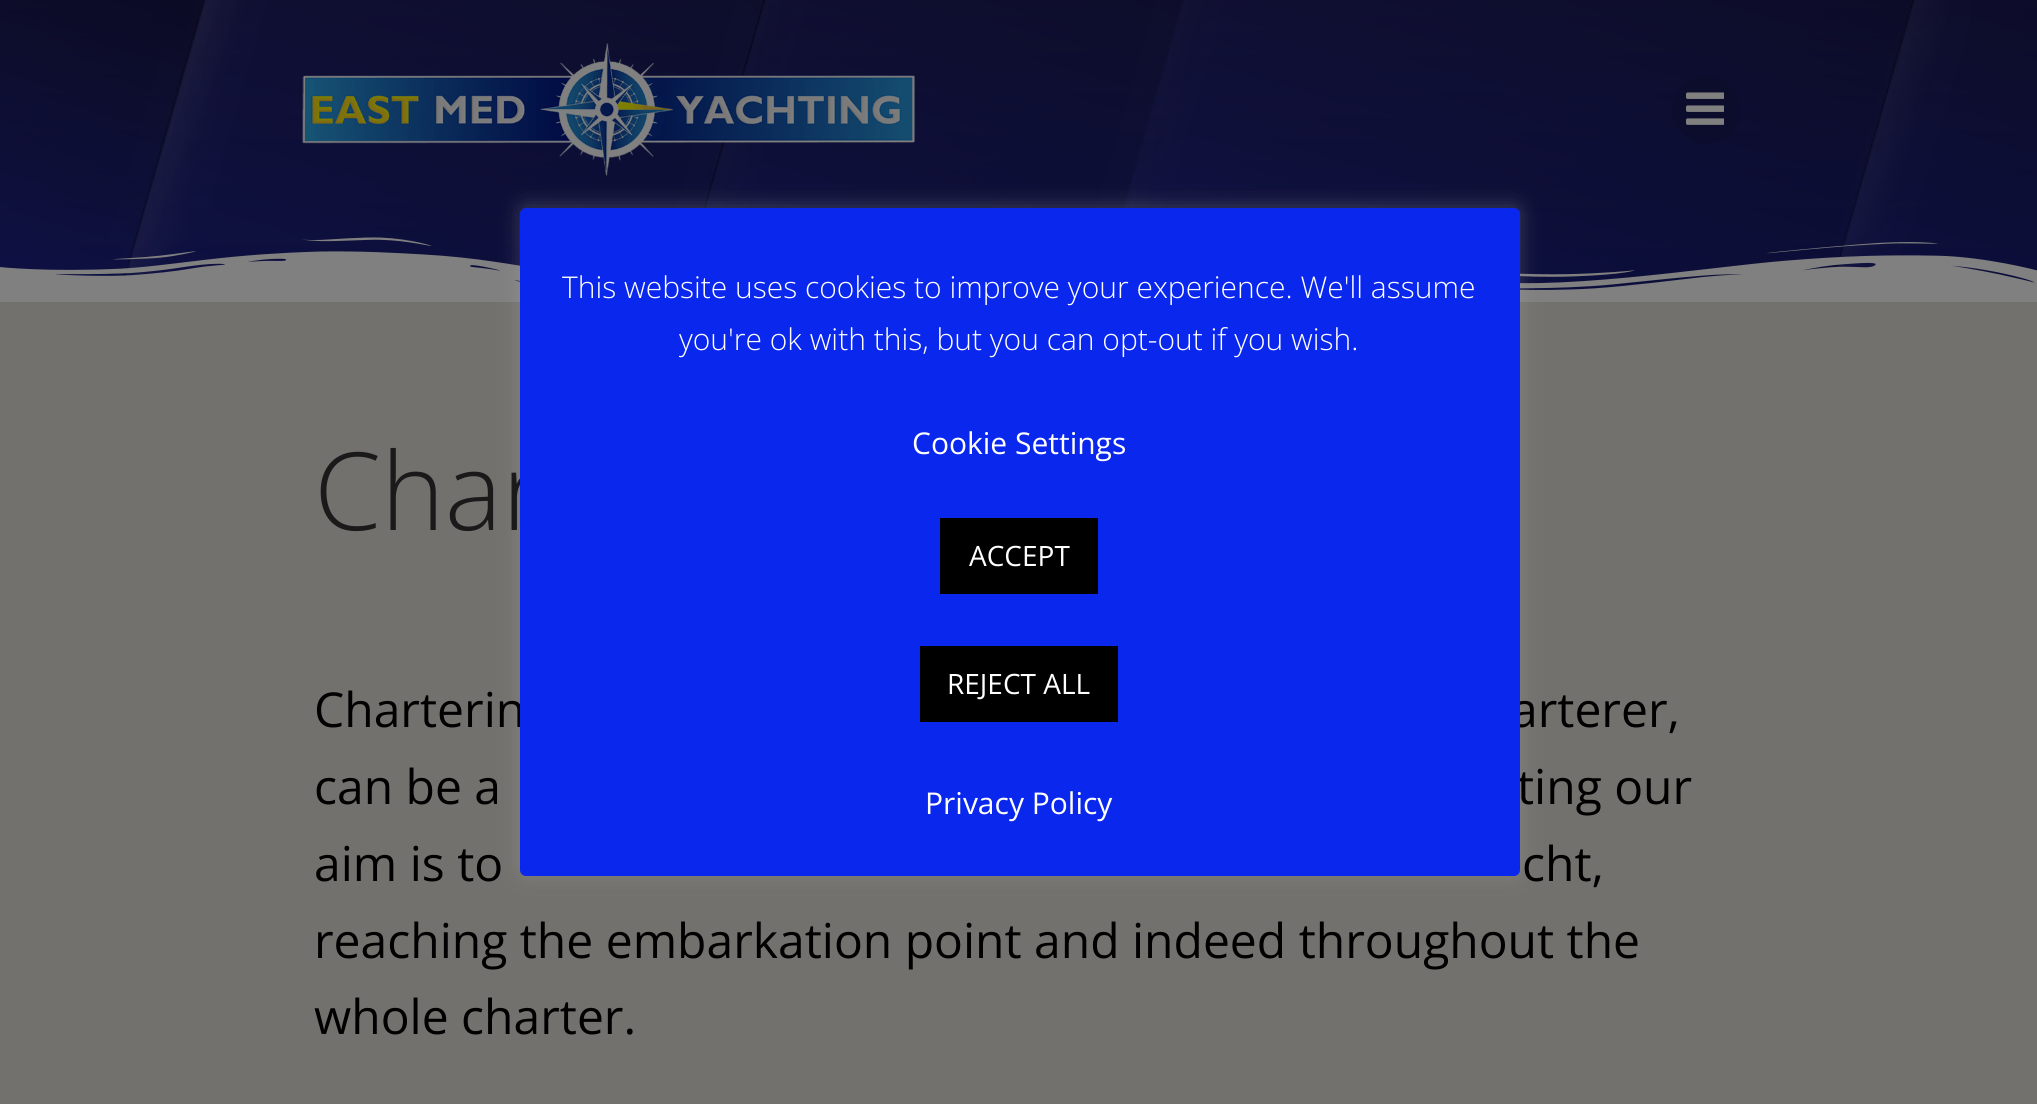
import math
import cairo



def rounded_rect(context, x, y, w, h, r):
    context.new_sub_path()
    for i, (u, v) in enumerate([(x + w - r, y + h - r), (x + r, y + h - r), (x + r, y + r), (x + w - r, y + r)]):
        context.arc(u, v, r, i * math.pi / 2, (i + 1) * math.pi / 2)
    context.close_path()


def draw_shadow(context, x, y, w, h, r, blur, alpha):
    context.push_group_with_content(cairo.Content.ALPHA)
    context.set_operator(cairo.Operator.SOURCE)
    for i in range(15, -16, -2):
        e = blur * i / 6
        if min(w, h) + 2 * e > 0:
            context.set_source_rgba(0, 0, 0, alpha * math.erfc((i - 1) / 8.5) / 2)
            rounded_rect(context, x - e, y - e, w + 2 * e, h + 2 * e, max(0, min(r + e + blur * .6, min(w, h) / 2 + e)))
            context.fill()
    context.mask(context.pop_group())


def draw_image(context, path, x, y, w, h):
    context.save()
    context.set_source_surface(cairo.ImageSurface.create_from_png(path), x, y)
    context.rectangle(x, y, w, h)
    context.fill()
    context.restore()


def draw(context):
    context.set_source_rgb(114 / 255, 113 / 255, 109 / 255)
    context.paint()
    gradient = cairo.LinearGradient(1019, 302, 1019, -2)
    gradient.add_color_stop_rgba(0, 24 / 255, 29 / 255, 121 / 255, 1)
    gradient.add_color_stop_rgba(1, 38 / 255, 37 / 255, 125 / 255, 1)
    context.set_source(gradient)
    context.rectangle(0, 0, 2037, 290)
    context.fill()
    draw_image(context, "images/1.png", 0, 0, 2037, 290)
    draw_image(context, "images/2.png", 0, 237, 2037, 65)
    draw_image(context, "images/3.png", 302, 43, 613, 133)
    context.set_source_rgb(172 / 255, 171 / 255, 171 / 255)
    draw_shadow(context, 520, 206, 1000, 668, 6, 10, 0.3)
    context.set_source_rgba(0, 0, 0, 0.1)
    context.arc(1706, 110, 34, 0, 2 * math.pi)
    context.fill()
    draw_image(context, "images/4.png", 1686, 92, 38, 33)
    context.select_font_face("Open Sans Light")
    context.set_font_size(108)
    context.set_source_rgb(26 / 255, 26 / 255, 26 / 255)
    context.move_to(314, 530)
    context.show_text("Char")
    context.select_font_face("Open Sans")
    context.set_font_size(48)
    context.set_source_rgb(0, 0, 0)
    context.move_to(314, 727)
    context.show_text("Charterin")
    context.move_to(1511, 727)
    context.show_text("arterer,")
    context.move_to(314, 804)
    context.show_text("can be a")
    context.move_to(1517, 804)
    context.show_text("ting our")
    context.set_source_rgb(9 / 255, 39 / 255, 237 / 255)
    rounded_rect(context, 520, 208, 1000, 668, 6)
    context.fill()
    context.set_source_rgb(0, 0, 0)
    context.rectangle(920, 646, 198, 76)
    context.fill()
    context.set_font_size(28)
    context.set_source_rgb(1, 1, 1)
    context.move_to(947, 694)
    context.show_text("REJECT ALL")
    context.set_source_rgb(0, 0, 0)
    context.rectangle(940, 518, 158, 76)
    context.fill()
    context.set_source_rgb(1, 1, 1)
    context.move_to(969, 566)
    context.show_text("ACCEPT")
    context.set_font_size(30)
    context.move_to(925, 814)
    context.show_text("Privacy Policy")
    context.move_to(912, 454)
    context.show_text("Cookie Settings")
    context.select_font_face("Open Sans Light")
    context.move_to(679, 350)
    context.show_text("you're ok with this, but you can opt-out if you wish.")
    context.move_to(562, 298)
    context.show_text("This website uses cookies to improve your experience. We'll assume")
    context.select_font_face("Open Sans")
    context.set_font_size(48)
    context.set_source_rgb(0, 0, 0)
    context.move_to(314, 881)
    context.show_text("aim is to")
    context.move_to(1522, 881)
    context.show_text("cht,")
    context.move_to(314, 958)
    context.show_text("reaching the embarkation point and indeed throughout the")
    context.move_to(314, 1034)
    context.show_text("whole charter.")


surface = cairo.ImageSurface(cairo.Format.RGB24, 2037, 1104)
context = cairo.Context(surface)
options = cairo.FontOptions()
options.set_hint_metrics(cairo.HintMetrics.OFF)
options.set_hint_style(cairo.HintStyle.NONE)
context.set_font_options(options)
context.set_miter_limit(4)
draw(context)
surface.write_to_png("out.png")
